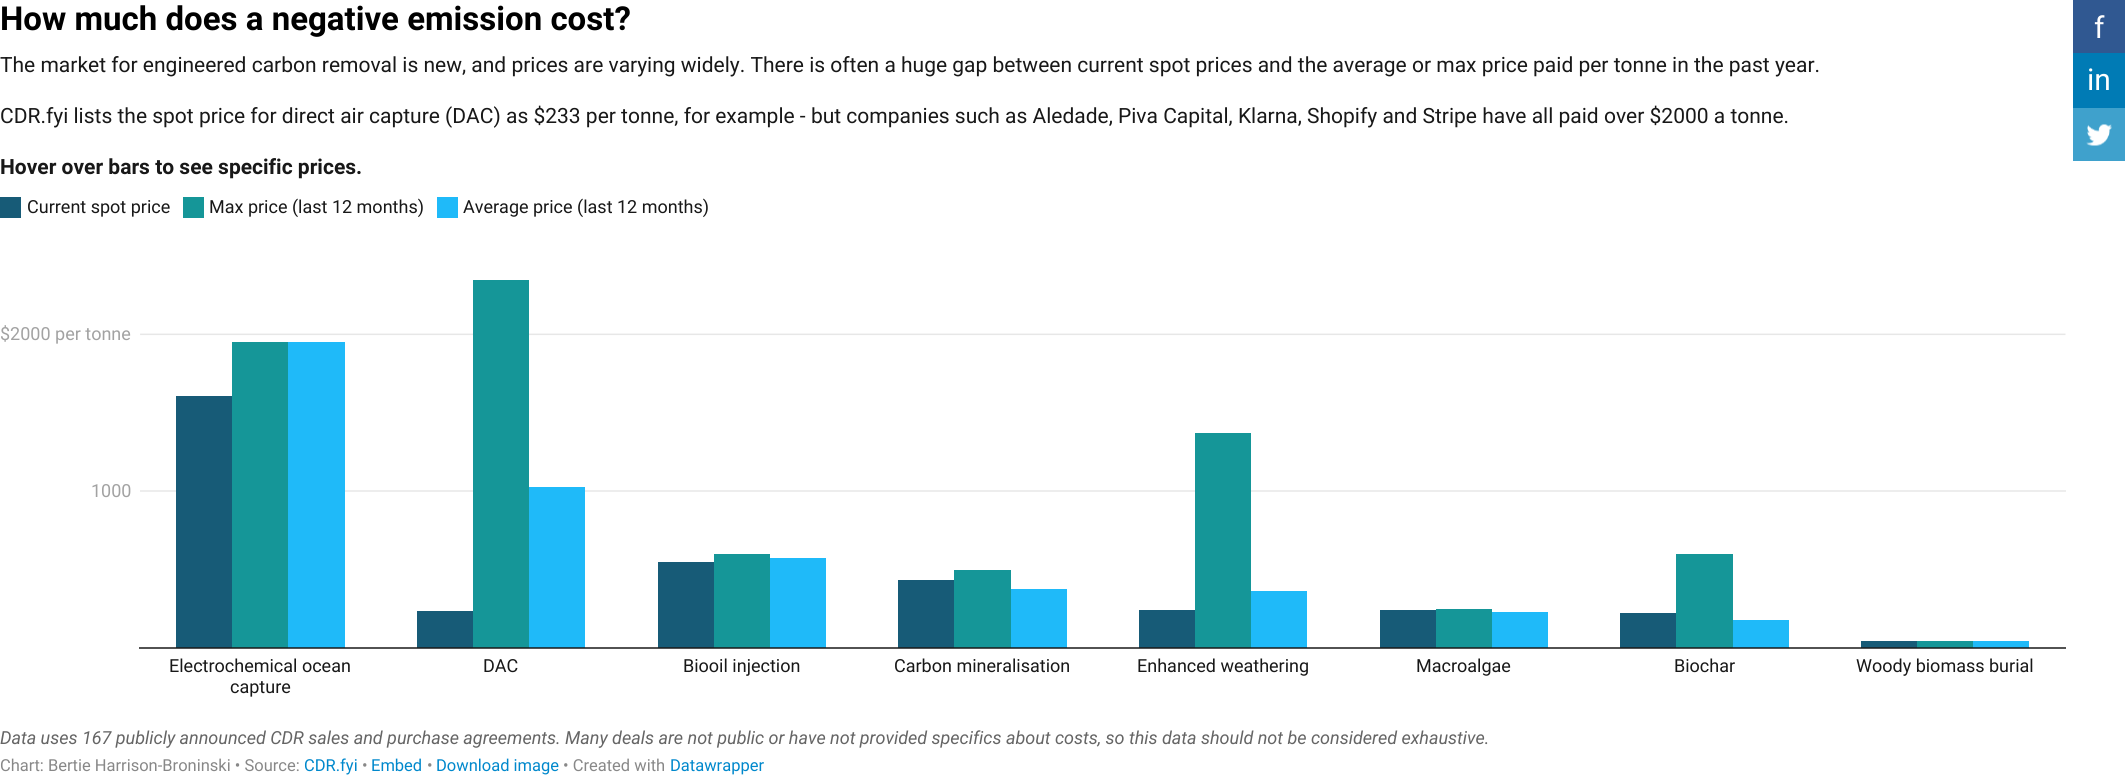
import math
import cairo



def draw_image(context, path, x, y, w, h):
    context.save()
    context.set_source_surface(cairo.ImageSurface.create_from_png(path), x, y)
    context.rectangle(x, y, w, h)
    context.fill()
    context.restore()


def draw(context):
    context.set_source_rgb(1, 1, 1)
    context.paint()
    context.set_source_rgb(48 / 255, 88 / 255, 145 / 255)
    context.rectangle(2073, 0, 52, 53)
    context.fill()
    context.set_source_rgb(0, 123 / 255, 181 / 255)
    context.rectangle(2073, 53, 52, 55)
    context.fill()
    context.set_source_rgb(63 / 255, 161 / 255, 204 / 255)
    context.rectangle(2073, 108, 52, 53)
    context.fill()
    draw_image(context, "images/1.png", 2086, 124, 26, 22)
    context.set_source_rgb(23 / 255, 91 / 255, 119 / 255)
    context.rectangle(0, 197, 21, 21)
    context.fill()
    context.set_source_rgb(21 / 255, 150 / 255, 152 / 255)
    context.rectangle(183, 197, 21, 21)
    context.fill()
    context.set_source_rgb(31 / 255, 186 / 255, 249 / 255)
    context.rectangle(437, 197, 21, 21)
    context.fill()
    draw_image(context, "images/2.png", 139, 280, 1927, 369)
    context.select_font_face("Roboto", cairo.FontSlant.NORMAL, cairo.FontWeight.BOLD)
    context.set_font_size(33)
    context.set_source_rgb(0, 0, 0)
    context.move_to(0, 30)
    context.show_text("How much does a negative emission cost?")
    context.select_font_face("Roboto")
    context.set_font_size(21)
    context.set_source_rgb(24 / 255, 24 / 255, 24 / 255)
    context.move_to(0, 72)
    context.show_text("The market for engineered carbon removal is new, and prices are varying widely. There is often a huge gap between current spot prices and the average or max price paid per tonne in the past year.")
    context.move_to(0, 123)
    context.show_text("CDR.fyi lists the spot price for direct air capture (DAC) as $233 per tonne, for example - but companies such as Aledade, Piva Capital, Klarna, Shopify and Stripe have all paid over $2000 a tonne.")
    context.select_font_face("Roboto", cairo.FontSlant.NORMAL, cairo.FontWeight.BOLD)
    context.move_to(0, 174)
    context.show_text("Hover over bars to see specific prices.")
    context.select_font_face("Roboto")
    context.set_font_size(30)
    context.set_source_rgb(1, 1, 1)
    context.move_to(2094, 38)
    context.show_text("f")
    context.move_to(2087, 90)
    context.show_text("in")
    context.set_font_size(18)
    context.set_source_rgb(24 / 255, 24 / 255, 24 / 255)
    context.move_to(27, 213)
    context.show_text("Current spot price")
    context.move_to(209, 213)
    context.show_text("Max price (last 12 months)")
    context.move_to(463, 213)
    context.show_text("Average price (last 12 months)")
    context.set_source_rgb(162 / 255, 162 / 255, 162 / 255)
    context.move_to(0, 340)
    context.show_text("$2000 per tonne")
    context.move_to(91, 497)
    context.show_text("1000")
    context.set_source_rgb(24 / 255, 24 / 255, 24 / 255)
    context.move_to(169, 672)
    context.show_text("Electrochemical ocean")
    context.move_to(230, 693)
    context.show_text("capture")
    context.move_to(483, 672)
    context.show_text("DAC")
    context.move_to(683, 672)
    context.show_text("Biooil injection")
    context.move_to(894, 672)
    context.show_text("Carbon mineralisation")
    context.move_to(1137, 672)
    context.show_text("Enhanced weathering")
    context.move_to(1416, 672)
    context.show_text("Macroalgae")
    context.move_to(1674, 672)
    context.show_text("Biochar")
    context.move_to(1856, 672)
    context.show_text("Woody biomass burial")
    context.select_font_face("Roboto", cairo.FontSlant.ITALIC)
    context.set_source_rgb(101 / 255, 101 / 255, 101 / 255)
    context.move_to(0, 744)
    context.show_text("Data uses 167 publicly announced CDR sales and purchase agreements. Many deals are not public or have not provided specifics about costs, so this data should not be considered exhaustive.")
    context.select_font_face("Roboto")
    context.set_font_size(16.5)
    context.set_source_rgb(136 / 255, 136 / 255, 136 / 255)
    context.move_to(0, 771)
    context.show_text("Chart: Bertie Harrison-Broninski • Source:")
    context.set_source_rgb(0, 136 / 255, 204 / 255)
    context.move_to(304, 771)
    context.show_text("CDR.fyi")
    context.set_source_rgb(136 / 255, 136 / 255, 136 / 255)
    context.move_to(362, 771)
    context.show_text("•")
    context.set_source_rgb(0, 136 / 255, 204 / 255)
    context.move_to(371, 771)
    context.show_text("Embed")
    context.set_source_rgb(136 / 255, 136 / 255, 136 / 255)
    context.move_to(427, 771)
    context.show_text("•")
    context.set_source_rgb(0, 136 / 255, 204 / 255)
    context.move_to(436, 771)
    context.show_text("Download image")
    context.set_source_rgb(136 / 255, 136 / 255, 136 / 255)
    context.move_to(563, 771)
    context.show_text("• Created with")
    context.set_source_rgb(0, 136 / 255, 204 / 255)
    context.move_to(670, 771)
    context.show_text("Datawrapper")


surface = cairo.ImageSurface(cairo.Format.RGB24, 2125, 775)
context = cairo.Context(surface)
options = cairo.FontOptions()
options.set_hint_metrics(cairo.HintMetrics.OFF)
options.set_hint_style(cairo.HintStyle.NONE)
context.set_font_options(options)
context.set_miter_limit(4)
draw(context)
surface.write_to_png("out.png")
